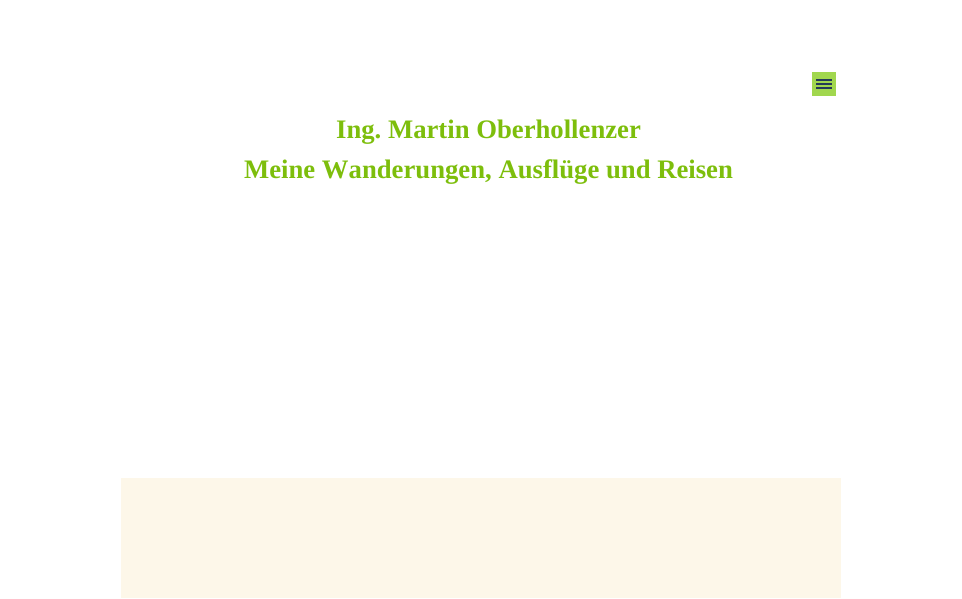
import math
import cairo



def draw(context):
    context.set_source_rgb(1, 1, 1)
    context.paint()
    context.set_source_rgb(161 / 255, 215 / 255, 78 / 255)
    context.rectangle(812, 72, 24, 24)
    context.fill()
    context.set_source_rgb(37 / 255, 58 / 255, 88 / 255)
    context.rectangle(816, 79, 16, 2)
    context.fill()
    context.rectangle(816, 83, 16, 2)
    context.fill()
    context.rectangle(816, 87, 16, 2)
    context.fill()
    context.set_source_rgb(253 / 255, 247 / 255, 233 / 255)
    context.rectangle(121, 478, 720, 120)
    context.fill()
    context.select_font_face("Liberation Serif", cairo.FontSlant.NORMAL, cairo.FontWeight.BOLD)
    context.set_font_size(26.7)
    context.set_source_rgb(125 / 255, 190 / 255, 12 / 255)
    context.move_to(336, 138)
    context.show_text("Ing. Martin Oberhollenzer")
    context.move_to(244, 178)
    context.show_text("Meine Wanderungen, Ausflüge und Reisen")


surface = cairo.ImageSurface(cairo.Format.RGB24, 962, 599)
context = cairo.Context(surface)
options = cairo.FontOptions()
options.set_hint_metrics(cairo.HintMetrics.OFF)
options.set_hint_style(cairo.HintStyle.NONE)
context.set_font_options(options)
context.set_miter_limit(4)
draw(context)
surface.write_to_png("out.png")
